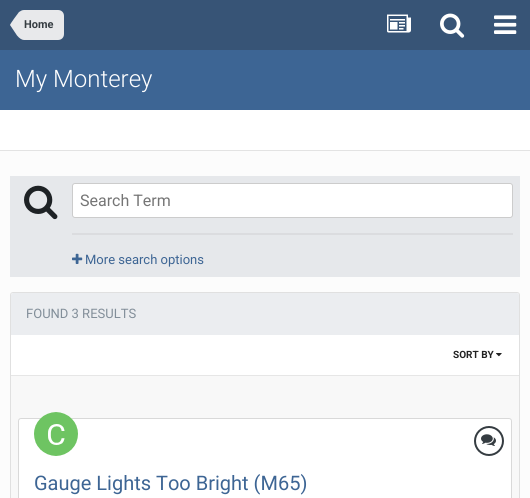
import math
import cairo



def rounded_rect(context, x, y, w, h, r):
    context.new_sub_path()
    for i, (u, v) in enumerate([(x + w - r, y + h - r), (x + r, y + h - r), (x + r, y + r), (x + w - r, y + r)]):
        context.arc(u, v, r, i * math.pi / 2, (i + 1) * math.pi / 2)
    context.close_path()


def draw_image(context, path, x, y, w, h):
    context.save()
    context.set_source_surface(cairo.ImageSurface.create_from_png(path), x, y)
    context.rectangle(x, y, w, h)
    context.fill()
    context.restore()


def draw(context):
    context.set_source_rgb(252 / 255, 252 / 255, 252 / 255)
    context.paint()
    context.set_source_rgb(227 / 255, 227 / 255, 227 / 255)
    context.rectangle(0, 150, 530, 1)
    context.fill()
    context.set_source_rgb(55 / 255, 84 / 255, 118 / 255)
    context.rectangle(0, 0, 530, 50)
    context.fill()
    context.set_source_rgb(232 / 255, 233 / 255, 235 / 255)
    context.new_path()
    context.move_to(24, 10)
    context.line_to(58, 10)
    context.curve_to(61.5, 10, 64, 12.5, 64, 16)
    context.line_to(64, 34)
    context.curve_to(64, 37.5, 61.5, 40, 58, 40)
    context.line_to(24, 40)
    context.close_path()
    context.fill()
    context.new_path()
    context.move_to(24, 25)
    context.line_to(24, 40)
    context.curve_to(22, 40, 19.5, 38.5, 17, 35.5)
    context.line_to(10, 25)
    context.close_path()
    context.move_to(24, 25)
    context.line_to(10, 25)
    context.curve_to(10, 24, 18.5, 12.5, 19, 12)
    context.curve_to(20.5, 11, 22, 10, 24, 10)
    context.close_path()
    context.fill()
    draw_image(context, "images/1.png", 387, 14, 24, 19)
    draw_image(context, "images/2.png", 440, 13, 25, 25)
    draw_image(context, "images/3.png", 494, 15, 23, 19)
    context.set_source_rgb(61 / 255, 101 / 255, 148 / 255)
    context.rectangle(0, 50, 530, 60)
    context.fill()
    context.set_source_rgb(1, 1, 1)
    context.rectangle(0, 110, 530, 40)
    context.fill()
    context.set_source_rgb(230 / 255, 232 / 255, 235 / 255)
    context.rectangle(10, 176, 510, 101)
    context.fill()
    draw_image(context, "images/4.png", 24, 185, 34, 35)
    context.set_source_rgb(1, 1, 1)
    rounded_rect(context, 72, 183, 441, 35, 3)
    context.fill()
    rounded_rect(context, 72.5, 183.5, 440, 34, 2.5)
    context.set_source_rgba(0, 0, 0, 0.2)
    context.set_line_width(1)
    context.stroke()
    context.set_source_rgb(219 / 255, 220 / 255, 223 / 255)
    context.rectangle(72, 233, 441, 2)
    context.fill()
    draw_image(context, "images/5.png", 72, 253, 11, 11)
    context.set_source_rgb(1, 1, 1)
    rounded_rect(context, 10.5, 292.5, 509, 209, 2.5)
    context.fill_preserve()
    context.set_source_rgb(224 / 255, 224 / 255, 224 / 255)
    context.stroke()
    context.set_source_rgb(235 / 255, 237 / 255, 240 / 255)
    context.new_path()
    context.move_to(13, 293)
    context.line_to(517, 293)
    context.curve_to(518, 293, 519, 294, 519, 295)
    context.line_to(519, 335)
    context.line_to(11, 335)
    context.line_to(11, 295)
    context.curve_to(11, 294, 12, 293, 13, 293)
    context.close_path()
    context.fill()
    context.set_source_rgb(230 / 255, 230 / 255, 230 / 255)
    context.rectangle(11, 375, 508, 1)
    context.fill()
    draw_image(context, "images/6.png", 496, 353, 6, 4)
    context.set_source_rgb(248 / 255, 248 / 255, 248 / 255)
    context.rectangle(11, 376, 508, 122)
    context.fill()
    context.set_source_rgb(1, 1, 1)
    rounded_rect(context, 18.5, 418.5, 493, 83, 2.5)
    context.fill_preserve()
    context.set_source_rgb(217 / 255, 217 / 255, 217 / 255)
    context.stroke()
    context.set_source_rgb(1, 1, 1)
    context.arc(56, 434, 22, 0, 2 * math.pi)
    context.fill()
    draw_image(context, "images/7.png", 34, 412, 44, 44)
    context.arc(489, 441, 14, 0, 2 * math.pi)
    context.set_source_rgb(53 / 255, 60 / 255, 65 / 255)
    context.set_line_width(2)
    context.stroke()
    draw_image(context, "images/8.png", 481, 434, 15, 12)
    context.select_font_face("Roboto", cairo.FontSlant.NORMAL, cairo.FontWeight.BOLD)
    context.set_font_size(11)
    context.move_to(24, 28)
    context.show_text("Home")
    context.select_font_face("Roboto Light")
    context.set_font_size(24)
    context.set_source_rgb(1, 1, 1)
    context.move_to(15, 87)
    context.show_text("My Monterey")
    context.select_font_face("Roboto")
    context.set_font_size(16)
    context.set_source_rgb(117 / 255, 117 / 255, 117 / 255)
    context.move_to(80, 206)
    context.show_text("Search Term")
    context.set_font_size(13)
    context.set_source_rgb(61 / 255, 101 / 255, 148 / 255)
    context.move_to(85, 264)
    context.show_text("More search options")
    context.set_source_rgb(130 / 255, 142 / 255, 153 / 255)
    context.move_to(26, 318)
    context.show_text("FOUND 3 RESULTS")
    context.select_font_face("Roboto", cairo.FontSlant.NORMAL, cairo.FontWeight.BOLD)
    context.set_font_size(10)
    context.set_source_rgb(34 / 255, 34 / 255, 34 / 255)
    context.move_to(453, 358)
    context.show_text("SORT BY")
    context.select_font_face("Roboto")
    context.set_font_size(20)
    context.set_source_rgb(61 / 255, 101 / 255, 148 / 255)
    context.move_to(34, 490)
    context.show_text("Gauge Lights Too Bright (M65)")


surface = cairo.ImageSurface(cairo.Format.RGB24, 530, 498)
context = cairo.Context(surface)
options = cairo.FontOptions()
options.set_hint_metrics(cairo.HintMetrics.OFF)
options.set_hint_style(cairo.HintStyle.NONE)
context.set_font_options(options)
context.set_miter_limit(4)
draw(context)
surface.write_to_png("out.png")
